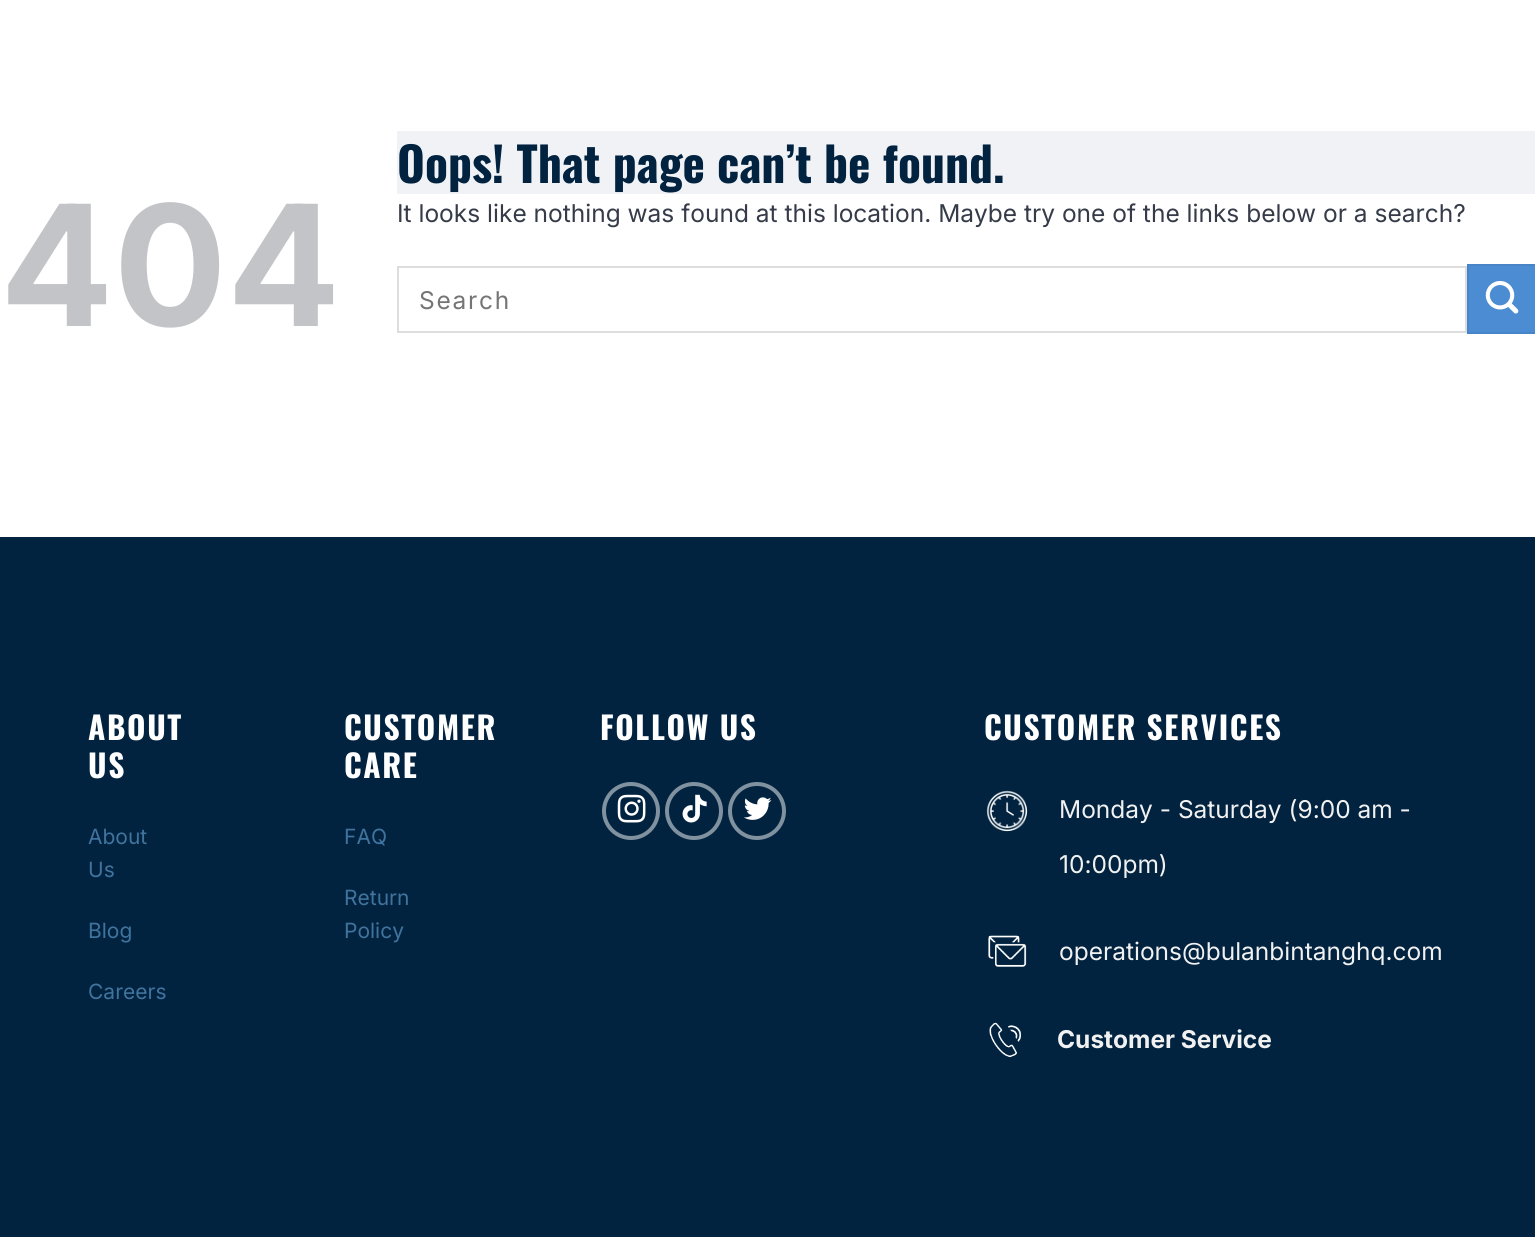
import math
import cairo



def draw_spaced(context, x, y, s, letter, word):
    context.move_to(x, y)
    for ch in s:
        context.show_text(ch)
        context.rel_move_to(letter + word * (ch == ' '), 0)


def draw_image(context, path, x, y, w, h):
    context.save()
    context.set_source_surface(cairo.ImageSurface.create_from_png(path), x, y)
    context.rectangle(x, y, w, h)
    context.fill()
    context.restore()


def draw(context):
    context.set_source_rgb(1, 1, 1)
    context.paint()
    context.set_source_rgb(241 / 255, 242 / 255, 246 / 255)
    context.rectangle(397, 131, 1138, 63)
    context.fill()
    context.rectangle(398, 267, 1068, 65)
    context.set_source_rgb(221 / 255, 221 / 255, 221 / 255)
    context.stroke()
    context.set_source_rgb(75 / 255, 140 / 255, 210 / 255)
    context.rectangle(1468, 265, 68, 68)
    context.fill_preserve()
    context.set_source_rgb(71 / 255, 133 / 255, 200 / 255)
    context.stroke()
    draw_image(context, "images/1.png", 1485, 281, 34, 33)
    context.set_source_rgb(1 / 255, 35 / 255, 63 / 255)
    context.rectangle(0, 537, 1535, 700)
    context.fill()
    context.arc(631, 811, 27, 0, 2 * math.pi)
    context.set_source_rgb(128 / 255, 145 / 255, 159 / 255)
    context.set_line_width(4)
    context.stroke()
    draw_image(context, "images/2.png", 617, 794, 29, 29)
    context.arc(694, 811, 27, 0, 2 * math.pi)
    context.stroke()
    draw_image(context, "images/3.png", 682, 794, 25, 29)
    context.arc(757, 811, 27, 0, 2 * math.pi)
    context.stroke()
    draw_image(context, "images/4.png", 744, 797, 28, 23)
    draw_image(context, "images/5.png", 986, 790, 42, 42)
    draw_image(context, "images/6.png", 988, 935, 39, 32)
    draw_image(context, "images/7.png", 989, 1022, 32, 35)
    context.select_font_face("Inter", cairo.FontSlant.NORMAL, cairo.FontWeight.BOLD)
    context.set_font_size(168)
    context.set_source_rgb(194 / 255, 196 / 255, 200 / 255)
    context.move_to(0, 326)
    context.show_text("404")
    context.select_font_face("Oswald", cairo.FontSlant.NORMAL, cairo.FontWeight.BOLD)
    context.set_font_size(47.6)
    context.set_source_rgb(1 / 255, 35 / 255, 63 / 255)
    context.move_to(397, 183)
    context.show_text("Oops! That page can’t be found.")
    context.select_font_face("Inter")
    context.set_font_size(24.5)
    context.set_source_rgb(53 / 255, 59 / 255, 72 / 255)
    context.move_to(397, 222)
    context.show_text("It looks like nothing was found at this location. Maybe try one of the links below or a search?")
    context.set_source_rgb(117 / 255, 117 / 255, 117 / 255)
    draw_spaced(context, 419, 309, "Search", 1.75, 0)
    context.select_font_face("Oswald", cairo.FontSlant.NORMAL, cairo.FontWeight.BOLD)
    context.set_font_size(31.5)
    context.set_source_rgb(1, 1, 1)
    draw_spaced(context, 88, 740, "ABOUT", 1.6, 0)
    draw_spaced(context, 88, 778, "US", 1.6, 0)
    context.select_font_face("Inter")
    context.set_font_size(21)
    context.set_source_rgb(64 / 255, 115 / 255, 158 / 255)
    context.move_to(88, 844)
    context.show_text("About")
    context.move_to(88, 877)
    context.show_text("Us")
    context.move_to(88, 938)
    context.show_text("Blog")
    context.move_to(88, 999)
    context.show_text("Careers")
    context.select_font_face("Oswald", cairo.FontSlant.NORMAL, cairo.FontWeight.BOLD)
    context.set_font_size(31.5)
    context.set_source_rgb(1, 1, 1)
    draw_spaced(context, 344, 740, "CUSTOMER", 1.6, 0)
    draw_spaced(context, 344, 778, "CARE", 1.6, 0)
    context.select_font_face("Inter")
    context.set_font_size(21)
    context.set_source_rgb(64 / 255, 115 / 255, 158 / 255)
    context.move_to(344, 844)
    context.show_text("FAQ")
    context.move_to(344, 905)
    context.show_text("Return")
    context.move_to(344, 938)
    context.show_text("Policy")
    context.select_font_face("Oswald", cairo.FontSlant.NORMAL, cairo.FontWeight.BOLD)
    context.set_font_size(31.5)
    context.set_source_rgb(1, 1, 1)
    draw_spaced(context, 600, 740, "FOLLOW US", 1.6, 0)
    draw_spaced(context, 984, 740, "CUSTOMER SERVICES", 1.6, 0)
    context.select_font_face("Inter")
    context.set_font_size(24.5)
    context.set_source_rgb(241 / 255, 241 / 255, 241 / 255)
    context.move_to(1059, 818)
    context.show_text("Monday - Saturday (9:00 am -")
    context.move_to(1059, 873)
    context.show_text("10:00pm)")
    context.move_to(1059, 960)
    context.show_text("operations@bulanbintanghq.com")
    context.select_font_face("Inter", cairo.FontSlant.NORMAL, cairo.FontWeight.BOLD)
    context.move_to(1057, 1048)
    context.show_text("Customer Service")


surface = cairo.ImageSurface(cairo.Format.RGB24, 1535, 1243)
context = cairo.Context(surface)
options = cairo.FontOptions()
options.set_hint_metrics(cairo.HintMetrics.OFF)
options.set_hint_style(cairo.HintStyle.NONE)
context.set_font_options(options)
context.set_miter_limit(4)
draw(context)
surface.write_to_png("out.png")
